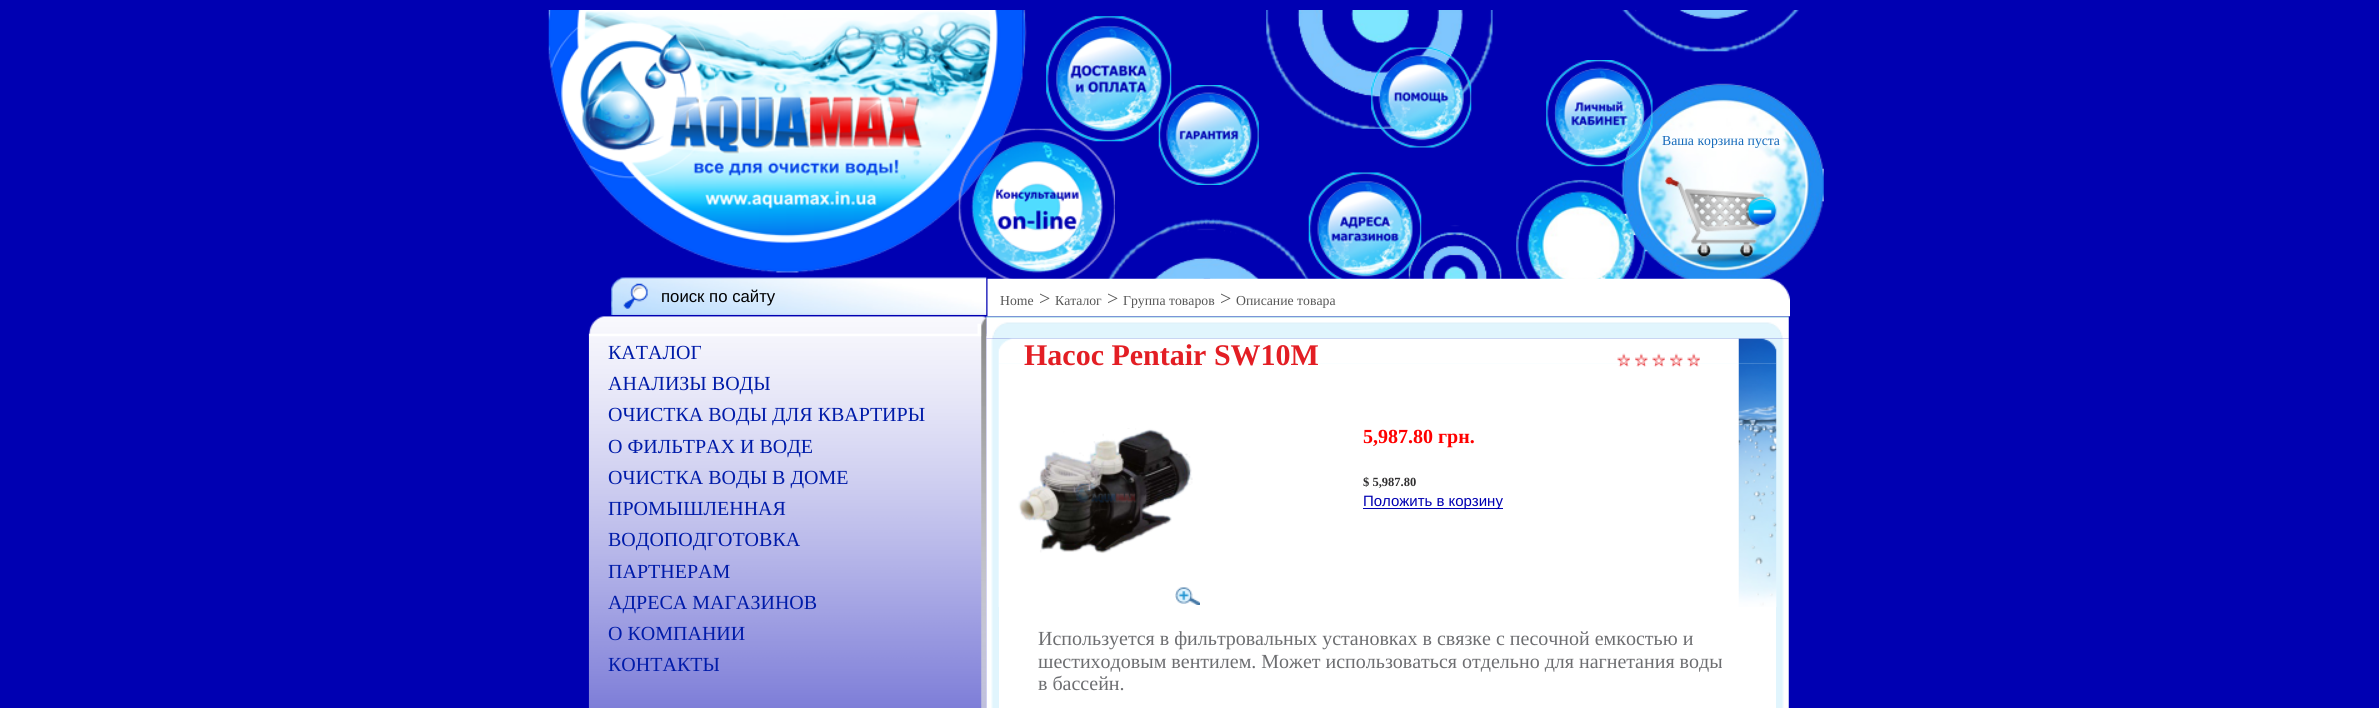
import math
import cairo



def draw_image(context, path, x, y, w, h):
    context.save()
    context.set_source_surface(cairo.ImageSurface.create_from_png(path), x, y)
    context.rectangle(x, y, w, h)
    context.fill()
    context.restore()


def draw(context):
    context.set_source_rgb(0, 0, 178 / 255)
    context.paint()
    draw_image(context, "images/1.png", 1022, 10, 802, 269)
    draw_image(context, "images/9.png", 548, 10, 475, 263)
    draw_image(context, "images/11.png", 611, 277, 376, 38)
    draw_image(context, "images/6.png", 958, 128, 157, 151)
    draw_image(context, "images/2.png", 1046, 16, 126, 126)
    draw_image(context, "images/3.png", 1158, 85, 101, 100)
    draw_image(context, "images/4.png", 1371, 47, 101, 101)
    draw_image(context, "images/5.png", 1546, 60, 107, 107)
    draw_image(context, "images/7.png", 1665, 176, 112, 82)
    draw_image(context, "images/8.png", 1308, 172, 114, 107)
    draw_image(context, "images/10.png", 623, 283, 25, 26)
    draw_image(context, "images/13.png", 588, 333, 399, 375)
    draw_image(context, "images/14.png", 981, 333, 6, 375)
    draw_image(context, "images/16.png", 986, 316, 803, 23)
    draw_image(context, "images/12.png", 987, 278, 803, 39)
    draw_image(context, "images/15.png", 588, 316, 399, 21)
    draw_image(context, "images/17.png", 986, 338, 803, 370)
    draw_image(context, "images/18.png", 998, 338, 779, 26)
    draw_image(context, "images/22.png", 998, 363, 779, 244)
    draw_image(context, "images/19.png", 1617, 353, 13, 14)
    draw_image(context, "images/20.png", 1635, 353, 13, 14)
    draw_image(context, "images/19.png", 1652, 353, 13, 14)
    draw_image(context, "images/20.png", 1670, 353, 13, 14)
    draw_image(context, "images/21.png", 1687, 353, 13, 14)
    context.set_source_rgb(1, 1, 1)
    context.rectangle(999, 607, 777, 101)
    context.fill()
    draw_image(context, "images/23.png", 1018, 428, 175, 126)
    draw_image(context, "images/24.png", 1175, 587, 25, 18)
    context.set_source_rgb(0, 0, 178 / 255)
    context.rectangle(1363, 508, 140, 1)
    context.fill()
    context.select_font_face("Liberation Serif")
    context.set_font_size(13.75)
    context.set_source_rgb(20 / 255, 106 / 255, 186 / 255)
    context.move_to(1662, 145)
    context.show_text("Ваша корзина пуста")
    context.select_font_face("Liberation Sans")
    context.set_font_size(16.75)
    context.set_source_rgb(0, 0, 0)
    context.move_to(661, 302)
    context.show_text("поиск по сайту")
    context.select_font_face("Liberation Serif")
    context.set_font_size(13.75)
    context.set_source_rgb(87 / 255, 87 / 255, 87 / 255)
    context.move_to(1000, 305)
    context.show_text("Home")
    context.set_font_size(20)
    context.move_to(1039, 305)
    context.show_text(">")
    context.set_font_size(13.75)
    context.move_to(1055, 305)
    context.show_text("Каталог")
    context.set_font_size(20)
    context.move_to(1107, 305)
    context.show_text(">")
    context.set_font_size(13.75)
    context.move_to(1123, 305)
    context.show_text("Группа товаров")
    context.set_font_size(20)
    context.move_to(1220, 305)
    context.show_text(">")
    context.set_font_size(13.75)
    context.move_to(1236, 305)
    context.show_text("Описание товара")
    context.set_font_size(20)
    context.set_source_rgb(0, 27 / 255, 169 / 255)
    context.move_to(608, 359)
    context.show_text("КАТАЛОГ")
    context.move_to(608, 390)
    context.show_text("АНАЛИЗЫ ВОДЫ")
    context.move_to(608, 421)
    context.show_text("ОЧИСТКА ВОДЫ ДЛЯ КВАРТИРЫ")
    context.move_to(608, 453)
    context.show_text("О ФИЛЬТРАХ И ВОДЕ")
    context.move_to(608, 484)
    context.show_text("ОЧИСТКА ВОДЫ В ДОМЕ")
    context.move_to(608, 515)
    context.show_text("ПРОМЫШЛЕННАЯ")
    context.move_to(608, 546)
    context.show_text("ВОДОПОДГОТОВКА")
    context.move_to(608, 578)
    context.show_text("ПАРТНЕРАМ")
    context.move_to(608, 609)
    context.show_text("АДРЕСА МАГАЗИНОВ")
    context.move_to(608, 640)
    context.show_text("О КОМПАНИИ")
    context.move_to(608, 671)
    context.show_text("КОНТАКТЫ")
    context.select_font_face("Liberation Serif", cairo.FontSlant.NORMAL, cairo.FontWeight.BOLD)
    context.set_font_size(30)
    context.set_source_rgb(227 / 255, 30 / 255, 36 / 255)
    context.move_to(1024, 365)
    context.show_text("Насос Pentair SW10M")
    context.set_font_size(20)
    context.set_source_rgb(1, 0, 0)
    context.move_to(1363, 443)
    context.show_text("5,987.80 грн.")
    context.set_font_size(12.5)
    context.set_source_rgb(49 / 255, 48 / 255, 49 / 255)
    context.move_to(1363, 486)
    context.show_text("$ 5,987.80")
    context.select_font_face("Liberation Sans")
    context.set_font_size(15)
    context.set_source_rgb(0, 0, 178 / 255)
    context.move_to(1363, 506)
    context.show_text("Положить в корзину")
    context.select_font_face("Liberation Serif")
    context.set_font_size(20)
    context.set_source_rgb(109 / 255, 110 / 255, 113 / 255)
    context.move_to(1038, 645)
    context.show_text("Используется в фильтровальных установках в связке с песочной емкостью и")
    context.move_to(1038, 668)
    context.show_text("шестиходовым вентилем. Может использоваться отдельно для нагнетания воды")
    context.move_to(1038, 690)
    context.show_text("в бассейн.")


surface = cairo.ImageSurface(cairo.Format.RGB24, 2379, 708)
context = cairo.Context(surface)
options = cairo.FontOptions()
options.set_hint_metrics(cairo.HintMetrics.OFF)
options.set_hint_style(cairo.HintStyle.NONE)
context.set_font_options(options)
context.set_miter_limit(4)
draw(context)
surface.write_to_png("out.png")
